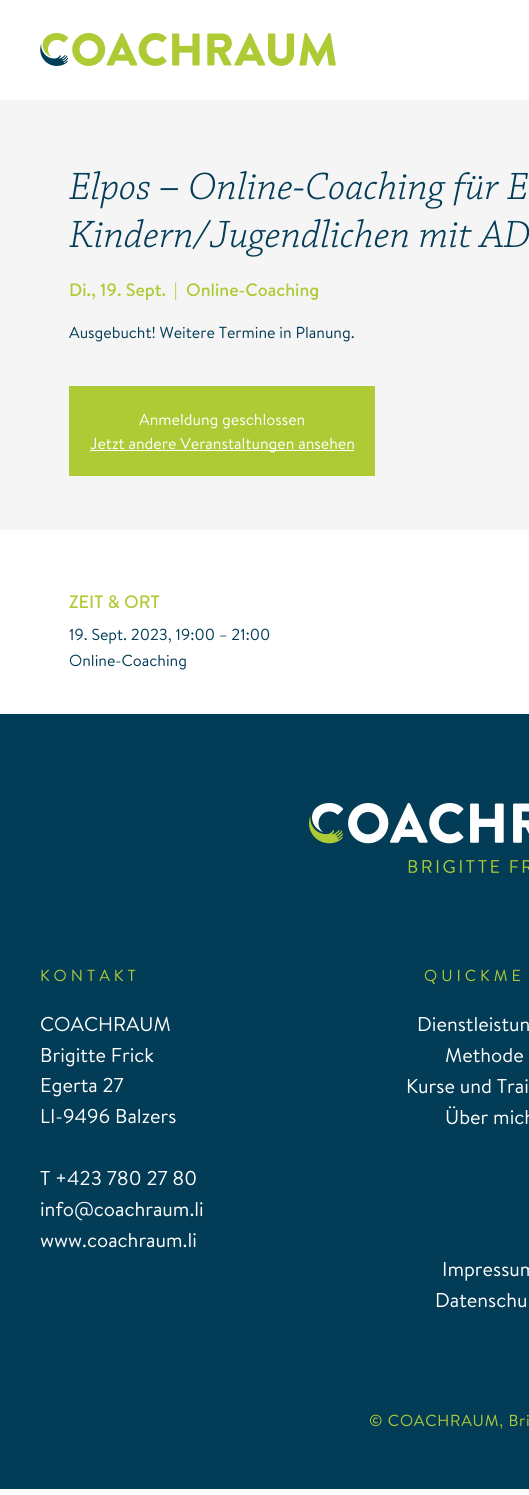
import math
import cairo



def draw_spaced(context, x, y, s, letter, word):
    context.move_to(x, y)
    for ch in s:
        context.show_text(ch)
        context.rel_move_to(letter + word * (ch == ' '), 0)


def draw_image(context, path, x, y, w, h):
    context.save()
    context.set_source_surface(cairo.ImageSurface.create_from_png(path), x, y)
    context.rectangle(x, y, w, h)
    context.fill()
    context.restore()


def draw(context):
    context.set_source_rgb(1, 1, 1)
    context.paint()
    draw_image(context, "images/1.png", 40, 33, 296, 33)
    context.set_source_rgb(245 / 255, 245 / 255, 245 / 255)
    context.rectangle(0, 100, 529, 430)
    context.fill()
    draw_image(context, "images/2.png", 69, 171, 459, 38)
    draw_image(context, "images/3.png", 69, 219, 460, 38)
    context.set_source_rgb(174 / 255, 203 / 255, 53 / 255)
    context.rectangle(69, 386, 306, 90)
    context.fill()
    context.set_source_rgb(1, 1, 1)
    context.rectangle(90, 450, 264, 1)
    context.fill()
    context.set_source_rgb(3 / 255, 60 / 255, 87 / 255)
    context.rectangle(0, 714, 529, 775)
    context.fill()
    draw_image(context, "images/4.png", 309, 803, 220, 70)
    context.select_font_face("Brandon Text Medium")
    context.set_font_size(18)
    context.set_source_rgb(174 / 255, 203 / 255, 53 / 255)
    context.move_to(69, 296)
    context.show_text("Di., 19. Sept.")
    context.move_to(174, 296)
    context.show_text("|")
    context.move_to(186, 296)
    context.show_text("Online-Coaching")
    context.select_font_face("Brandon Text")
    context.set_font_size(16)
    context.set_source_rgb(3 / 255, 60 / 255, 87 / 255)
    context.move_to(69, 338)
    context.show_text("Ausgebucht! Weitere Termine in Planung.")
    context.set_source_rgb(1, 1, 1)
    context.move_to(139, 425)
    context.show_text("Anmeldung geschlossen")
    context.move_to(90, 449)
    context.show_text("Jetzt andere Veranstaltungen ansehen")
    context.select_font_face("Brandon Text Medium")
    context.set_font_size(18)
    context.set_source_rgb(174 / 255, 203 / 255, 53 / 255)
    context.move_to(69, 608)
    context.show_text("ZEIT & ORT")
    context.select_font_face("Brandon Text")
    context.set_font_size(16)
    context.set_source_rgb(3 / 255, 60 / 255, 87 / 255)
    context.move_to(69, 640)
    context.show_text("19. Sept. 2023, 19:00 – 21:00")
    context.move_to(69, 666)
    context.show_text("Online-Coaching")
    context.set_source_rgb(174 / 255, 203 / 255, 53 / 255)
    draw_spaced(context, 40, 981, "KONTAKT", 4, 0)
    draw_spaced(context, 424, 981, "QUICKME", 4, 0)
    context.set_font_size(20)
    context.set_source_rgb(1, 1, 1)
    context.move_to(40, 1031)
    context.show_text("COACHRAUM")
    context.move_to(40, 1062)
    context.show_text("Brigitte Frick")
    context.move_to(40, 1092)
    context.show_text("Egerta 27")
    context.move_to(40, 1123)
    context.show_text("LI-9496 Balzers")
    context.move_to(40, 1185)
    context.show_text("T +423 780 27 80")
    context.move_to(40, 1216)
    context.show_text("info@coachraum.li")
    context.move_to(40, 1247)
    context.show_text("www.coachraum.li")
    context.move_to(417, 1031)
    context.show_text("Dienstleistun")
    context.move_to(445, 1062)
    context.show_text("Methode")
    context.move_to(406, 1093)
    context.show_text("Kurse und Trai")
    context.move_to(445, 1124)
    context.show_text("Über mich")
    context.move_to(442, 1276)
    context.show_text("Impressum")
    context.move_to(435, 1307)
    context.show_text("Datenschu")
    context.set_font_size(16)
    context.set_source_rgb(174 / 255, 203 / 255, 53 / 255)
    draw_spaced(context, 369, 1426, "© COACHRAUM, Bri", 0.75, 0)


surface = cairo.ImageSurface(cairo.Format.RGB24, 529, 1495)
context = cairo.Context(surface)
options = cairo.FontOptions()
options.set_hint_metrics(cairo.HintMetrics.OFF)
options.set_hint_style(cairo.HintStyle.NONE)
context.set_font_options(options)
context.set_miter_limit(4)
draw(context)
surface.write_to_png("out.png")
